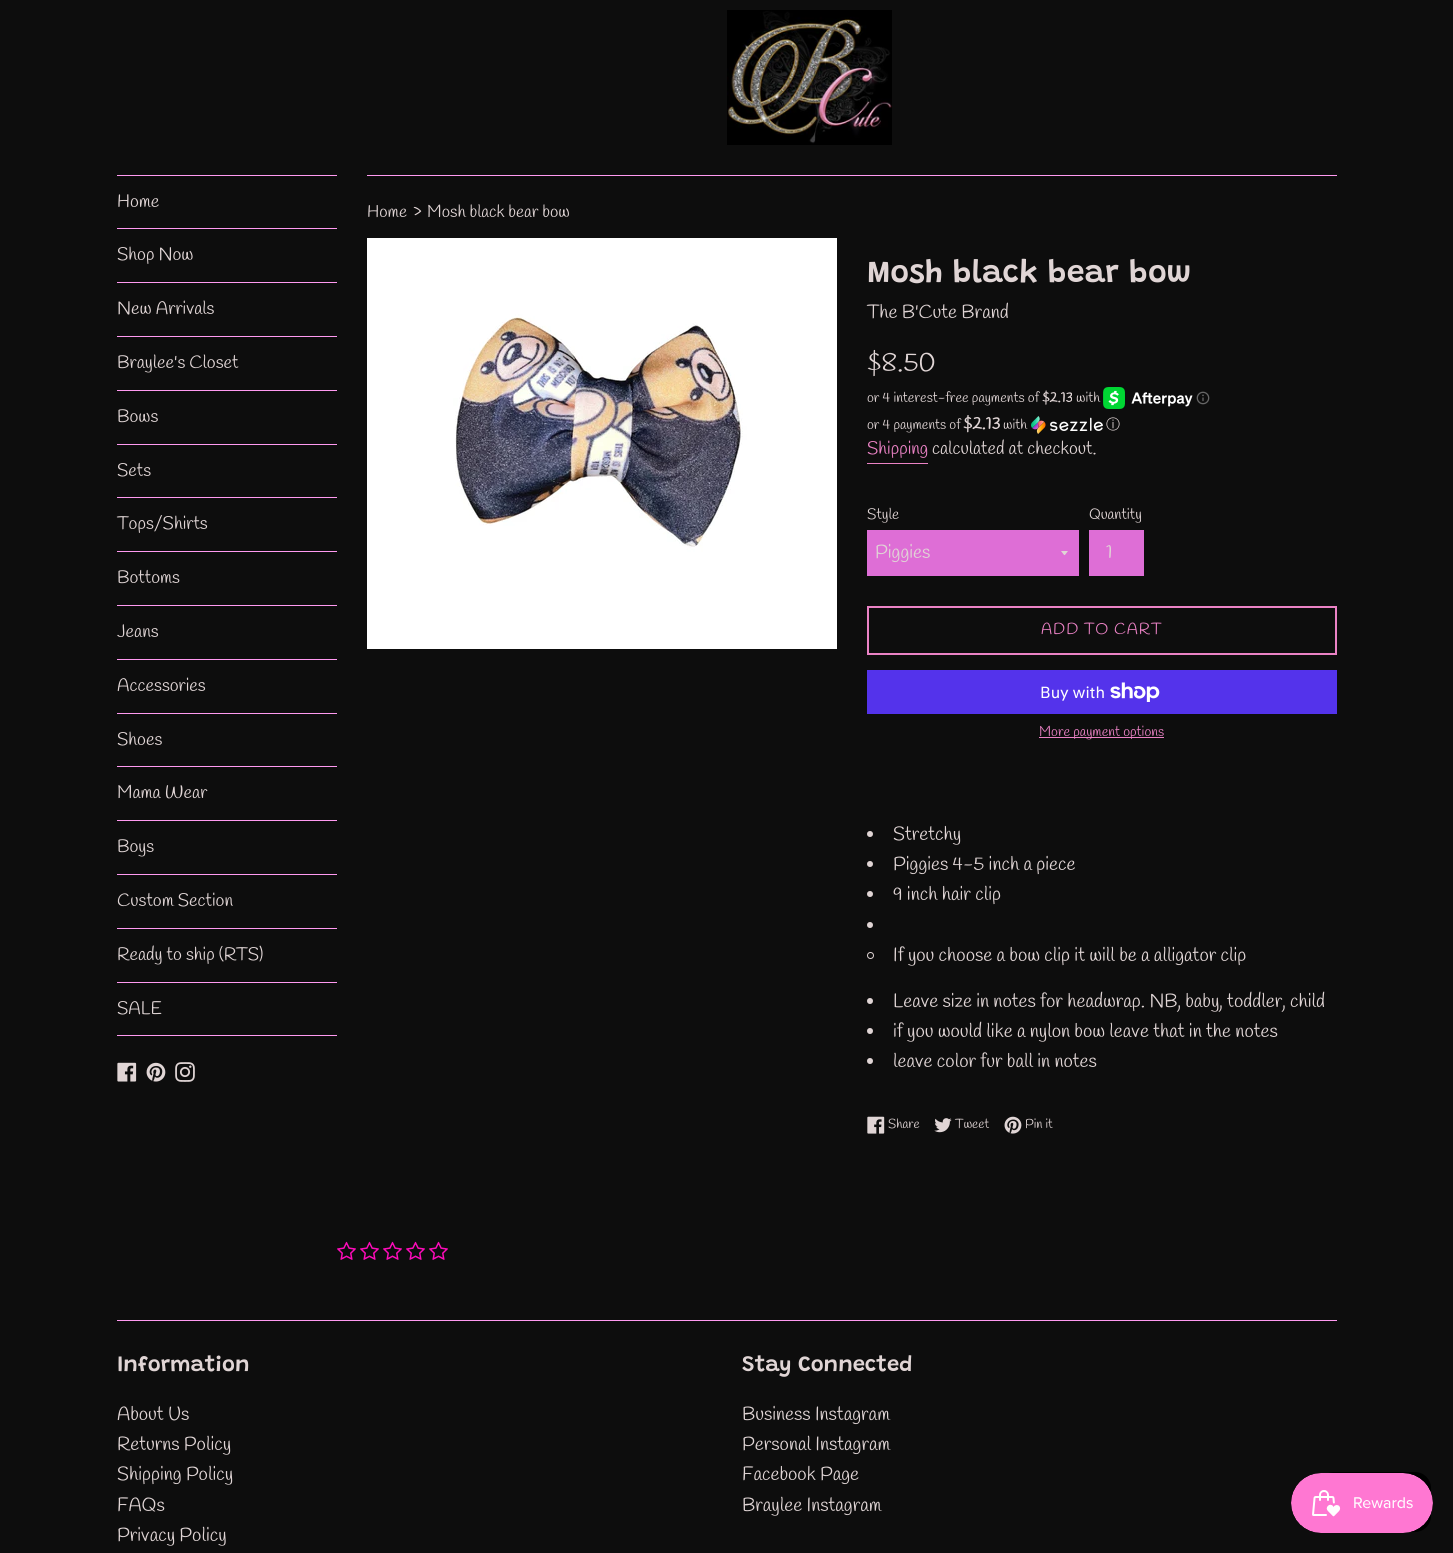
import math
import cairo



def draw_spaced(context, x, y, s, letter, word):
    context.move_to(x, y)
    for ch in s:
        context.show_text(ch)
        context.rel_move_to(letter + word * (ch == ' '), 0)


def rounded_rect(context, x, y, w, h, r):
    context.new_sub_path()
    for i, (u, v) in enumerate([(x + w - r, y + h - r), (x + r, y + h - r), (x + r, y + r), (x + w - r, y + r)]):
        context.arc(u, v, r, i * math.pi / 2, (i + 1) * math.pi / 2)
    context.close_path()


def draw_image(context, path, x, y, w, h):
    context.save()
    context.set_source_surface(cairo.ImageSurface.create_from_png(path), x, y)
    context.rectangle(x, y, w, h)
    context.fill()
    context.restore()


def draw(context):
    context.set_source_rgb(13 / 255, 13 / 255, 13 / 255)
    context.paint()
    draw_image(context, "images/1.png", 727, 10, 165, 135)
    context.set_source_rgb(1, 154 / 255, 240 / 255)
    context.rectangle(117, 175, 220, 1)
    context.fill()
    context.rectangle(117, 228, 220, 1)
    context.fill()
    context.rectangle(117, 282, 220, 1)
    context.fill()
    context.rectangle(117, 336, 220, 1)
    context.fill()
    context.rectangle(117, 390, 220, 1)
    context.fill()
    context.rectangle(117, 444, 220, 1)
    context.fill()
    context.rectangle(117, 497, 220, 1)
    context.fill()
    context.rectangle(117, 551, 220, 1)
    context.fill()
    context.rectangle(117, 605, 220, 1)
    context.fill()
    context.rectangle(117, 659, 220, 1)
    context.fill()
    context.rectangle(117, 713, 220, 1)
    context.fill()
    context.rectangle(117, 766, 220, 1)
    context.fill()
    context.rectangle(117, 820, 220, 1)
    context.fill()
    context.rectangle(117, 874, 220, 1)
    context.fill()
    context.rectangle(117, 928, 220, 1)
    context.fill()
    context.rectangle(117, 982, 220, 1)
    context.fill()
    context.rectangle(117, 1035, 220, 1)
    context.fill()
    draw_image(context, "images/2.png", 117, 1062, 20, 20)
    draw_image(context, "images/3.png", 146, 1062, 20, 20)
    draw_image(context, "images/4.png", 175, 1062, 20, 20)
    context.rectangle(367, 175, 970, 1)
    context.fill()
    draw_image(context, "images/5.png", 367, 238, 470, 411)
    draw_image(context, "images/6.png", 1103, 387, 90, 22)
    draw_image(context, "images/7.png", 1196, 391, 14, 14)
    draw_image(context, "images/8.png", 1031, 416, 72, 18)
    context.set_source_rgb(235 / 255, 130 / 255, 197 / 255)
    context.rectangle(867, 463, 61, 1)
    context.fill()
    context.set_source_rgb(222 / 255, 110 / 255, 214 / 255)
    context.rectangle(867, 530, 212, 46)
    context.fill()
    context.set_source_rgb(224 / 255, 213 / 255, 213 / 255)
    context.new_path()
    context.move_to(1061, 551)
    context.curve_to(1065.5, 556.5, 1063.5, 556.5, 1068, 551)
    context.close_path()
    context.fill()
    context.set_source_rgb(222 / 255, 110 / 255, 214 / 255)
    context.rectangle(1089, 530, 55, 46)
    context.fill()
    context.rectangle(868, 607, 468, 47)
    context.set_source_rgb(235 / 255, 130 / 255, 197 / 255)
    context.stroke()
    context.set_source_rgb(84 / 255, 51 / 255, 235 / 255)
    context.rectangle(867, 670, 470, 44)
    context.fill()
    draw_image(context, "images/9.png", 1110, 682, 50, 20)
    context.set_source_rgb(235 / 255, 130 / 255, 197 / 255)
    context.rectangle(1039, 737, 125, 1)
    context.fill()
    context.set_source_rgb(224 / 255, 213 / 255, 213 / 255)
    context.arc(870, 834, 3, 0, 2 * math.pi)
    context.fill()
    context.arc(870, 864, 3, 0, 2 * math.pi)
    context.fill()
    context.arc(870, 894, 3, 0, 2 * math.pi)
    context.fill()
    context.arc(870, 925, 3, 0, 2 * math.pi)
    context.fill()
    context.arc(870.5, 955.5, 3, 0, 2 * math.pi)
    context.set_line_width(1)
    context.stroke()
    context.arc(870, 1001, 3, 0, 2 * math.pi)
    context.fill()
    context.arc(870, 1031, 3, 0, 2 * math.pi)
    context.fill()
    context.arc(870, 1061, 3, 0, 2 * math.pi)
    context.fill()
    draw_image(context, "images/10.png", 867, 1116, 18, 18)
    draw_image(context, "images/11.png", 934, 1118, 18, 15)
    draw_image(context, "images/12.png", 1004, 1116, 18, 18)
    draw_image(context, "images/13.png", 337, 1241, 19, 19)
    draw_image(context, "images/13.png", 360, 1241, 19, 19)
    draw_image(context, "images/13.png", 383, 1241, 19, 19)
    draw_image(context, "images/13.png", 406, 1241, 19, 19)
    draw_image(context, "images/13.png", 429, 1241, 19, 19)
    context.set_source_rgb(1, 154 / 255, 240 / 255)
    context.rectangle(117, 1320, 1220, 1)
    context.fill()
    context.set_source_rgb(0, 0, 0)
    rounded_rect(context, 1318, 1472, 113, 60, 16)
    context.fill()
    draw_image(context, "images/14.png", 1291, 1473, 142, 60)
    context.select_font_face("Handlee")
    context.set_font_size(18)
    context.set_source_rgb(224 / 255, 213 / 255, 213 / 255)
    context.move_to(117, 207)
    context.show_text("Home")
    context.move_to(117, 260)
    context.show_text("Shop Now")
    context.move_to(117, 314)
    context.show_text("New Arrivals")
    context.move_to(117, 368)
    context.show_text("Braylee's Closet")
    context.move_to(117, 422)
    context.show_text("Bows")
    context.move_to(117, 476)
    context.show_text("Sets")
    context.move_to(117, 529)
    context.show_text("Tops/Shirts")
    context.move_to(117, 583)
    context.show_text("Bottoms")
    context.move_to(117, 637)
    context.show_text("Jeans")
    context.move_to(117, 691)
    context.show_text("Accessories")
    context.move_to(117, 745)
    context.show_text("Shoes")
    context.move_to(117, 798)
    context.show_text("Mama Wear")
    context.move_to(117, 852)
    context.show_text("Boys")
    context.move_to(117, 906)
    context.show_text("Custom Section")
    context.move_to(117, 960)
    context.show_text("Ready to ship (RTS)")
    context.move_to(117, 1014)
    context.show_text("SALE")
    context.set_font_size(17)
    context.move_to(367, 217)
    context.show_text("Home")
    context.set_font_size(21)
    context.move_to(413, 217)
    context.show_text("›")
    context.set_font_size(17)
    context.move_to(427, 217)
    context.show_text("Mosh black bear bow")
    context.select_font_face("Grandstander SemiBold")
    context.set_font_size(32)
    context.move_to(867, 282)
    context.show_text("Mosh black bear bow")
    context.select_font_face("Handlee")
    context.set_font_size(19)
    context.move_to(867, 318)
    context.show_text("The B'Cute Brand")
    context.set_font_size(26.5)
    context.move_to(867, 371)
    context.show_text("$8.50")
    context.set_font_size(14)
    context.move_to(867, 402)
    context.show_text("or 4 interest-free payments of")
    context.select_font_face("Handlee", cairo.FontSlant.NORMAL, cairo.FontWeight.BOLD)
    context.move_to(1042, 402)
    context.show_text("$2.13")
    context.select_font_face("Handlee")
    context.move_to(1076, 402)
    context.show_text("with")
    context.move_to(867, 429)
    context.show_text("or 4 payments of")
    context.select_font_face("Handlee", cairo.FontSlant.NORMAL, cairo.FontWeight.BOLD)
    context.set_font_size(17)
    context.move_to(963, 429)
    context.show_text("$2.13")
    context.select_font_face("Handlee")
    context.set_font_size(14)
    context.move_to(1003, 429)
    context.show_text("with")
    context.select_font_face("WenQuanYi Zen Hei Medium")
    context.move_to(1106, 429)
    context.show_text("ⓘ")
    context.select_font_face("Handlee")
    context.set_font_size(18)
    context.set_source_rgb(235 / 255, 130 / 255, 197 / 255)
    context.move_to(867, 454)
    context.show_text("Shipping")
    context.set_source_rgb(224 / 255, 213 / 255, 213 / 255)
    context.move_to(932, 454)
    context.show_text("calculated at checkout.")
    context.set_font_size(15)
    context.move_to(867, 519)
    context.show_text("Style")
    context.set_font_size(19)
    context.move_to(875, 558)
    context.show_text("Piggies")
    context.set_font_size(15)
    context.move_to(1089, 519)
    context.show_text("Quantity")
    context.set_font_size(19)
    context.move_to(1106, 558)
    context.show_text("1")
    context.set_font_size(16)
    context.set_source_rgb(235 / 255, 130 / 255, 197 / 255)
    draw_spaced(context, 1041, 634, "ADD TO CART", 1, 0)
    context.select_font_face("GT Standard")
    context.set_source_rgb(1, 1, 1)
    context.move_to(1040, 698)
    context.show_text("Buy with")
    context.select_font_face("Handlee")
    context.set_font_size(14)
    context.set_source_rgb(235 / 255, 130 / 255, 197 / 255)
    context.move_to(1039, 736)
    context.show_text("More payment options")
    context.set_font_size(19)
    context.set_source_rgb(224 / 255, 213 / 255, 213 / 255)
    context.move_to(893, 840)
    context.show_text("Stretchy")
    context.move_to(893, 870)
    context.show_text("Piggies 4-5 inch a piece")
    context.move_to(893, 900)
    context.show_text("9 inch hair clip")
    context.move_to(893, 961)
    context.show_text("If you choose a bow clip it will be a alligator clip")
    context.move_to(893, 1007)
    context.show_text("Leave size in notes for headwrap. NB, baby, toddler, child")
    context.move_to(893, 1037)
    context.show_text("if you would like a nylon bow leave that in the notes")
    context.move_to(893, 1067)
    context.show_text("leave color fur ball in notes")
    context.set_font_size(13)
    context.move_to(888, 1128)
    context.show_text("Share")
    context.move_to(955, 1128)
    context.show_text("Tweet")
    context.move_to(1025, 1128)
    context.show_text("Pin it")
    context.select_font_face("Grandstander SemiBold")
    context.set_font_size(22)
    context.move_to(117, 1371)
    context.show_text("Information")
    context.select_font_face("Handlee")
    context.set_font_size(19)
    context.move_to(117, 1420)
    context.show_text("About Us")
    context.move_to(117, 1450)
    context.show_text("Returns Policy")
    context.move_to(117, 1480)
    context.show_text("Shipping Policy")
    context.move_to(117, 1511)
    context.show_text("FAQs")
    context.move_to(117, 1541)
    context.show_text("Privacy Policy")
    context.select_font_face("Grandstander SemiBold")
    context.set_font_size(22)
    context.move_to(742, 1371)
    context.show_text("Stay Connected")
    context.select_font_face("Handlee")
    context.set_font_size(19)
    context.move_to(742, 1420)
    context.show_text("Business Instagram")
    context.move_to(742, 1450)
    context.show_text("Personal Instagram")
    context.move_to(742, 1480)
    context.show_text("Facebook Page")
    context.move_to(742, 1511)
    context.show_text("Braylee Instagram")


surface = cairo.ImageSurface(cairo.Format.RGB24, 1453, 1553)
context = cairo.Context(surface)
options = cairo.FontOptions()
options.set_hint_metrics(cairo.HintMetrics.OFF)
options.set_hint_style(cairo.HintStyle.NONE)
context.set_font_options(options)
context.set_miter_limit(4)
draw(context)
surface.write_to_png("out.png")
